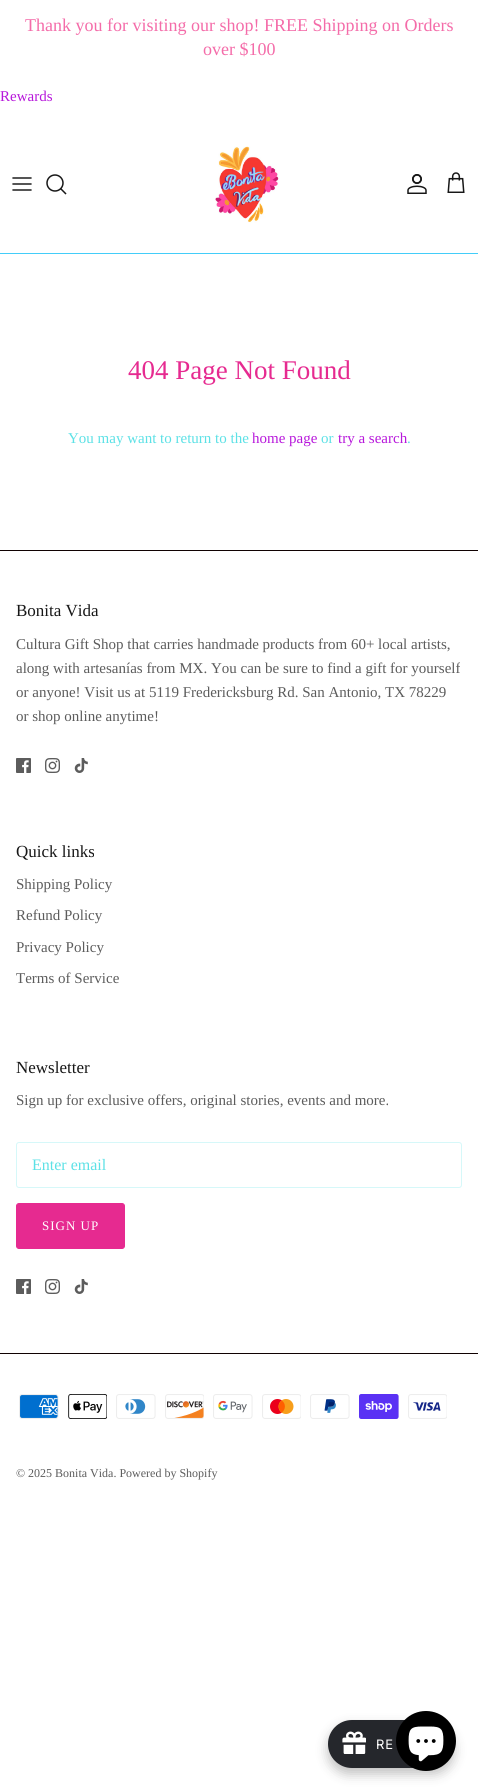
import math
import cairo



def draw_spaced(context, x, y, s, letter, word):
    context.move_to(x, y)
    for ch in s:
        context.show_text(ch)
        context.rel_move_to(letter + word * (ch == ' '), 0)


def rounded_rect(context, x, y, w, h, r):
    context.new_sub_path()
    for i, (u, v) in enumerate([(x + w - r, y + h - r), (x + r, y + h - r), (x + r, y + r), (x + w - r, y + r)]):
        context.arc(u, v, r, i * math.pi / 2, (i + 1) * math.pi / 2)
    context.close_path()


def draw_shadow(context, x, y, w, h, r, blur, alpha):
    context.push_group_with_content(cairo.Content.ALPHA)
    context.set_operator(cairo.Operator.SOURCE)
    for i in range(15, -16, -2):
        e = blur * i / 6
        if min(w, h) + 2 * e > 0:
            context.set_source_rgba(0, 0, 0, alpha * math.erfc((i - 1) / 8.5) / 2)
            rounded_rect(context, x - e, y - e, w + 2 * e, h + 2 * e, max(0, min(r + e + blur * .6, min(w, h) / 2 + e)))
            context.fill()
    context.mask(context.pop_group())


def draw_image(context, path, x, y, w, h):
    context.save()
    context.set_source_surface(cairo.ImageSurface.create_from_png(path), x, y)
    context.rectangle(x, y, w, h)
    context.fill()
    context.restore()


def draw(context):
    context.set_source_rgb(1, 1, 1)
    context.paint()
    context.set_source_rgb(67 / 255, 205 / 255, 249 / 255)
    context.rectangle(0, 253, 478, 1)
    context.fill()
    draw_image(context, "images/1.png", 12, 177, 20, 14)
    context.arc(55, 183, 8, 0, 2 * math.pi)
    context.set_source_rgb(23 / 255, 23 / 255, 23 / 255)
    context.set_line_width(1.5)
    context.stroke()
    context.new_path()
    context.move_to(61, 189)
    context.line_to(65.5, 193.5)
    context.set_line_cap(cairo.LineCap.SQUARE)
    context.stroke()
    draw_image(context, "images/2.png", 215, 146, 64, 77)
    draw_image(context, "images/3.png", 407, 174, 20, 20)
    draw_image(context, "images/4.png", 447, 172, 18, 21)
    context.set_source_rgb(16 / 255, 1 / 255, 1 / 255)
    context.rectangle(0, 550, 478, 1)
    context.fill()
    draw_image(context, "images/5.png", 16, 758, 15, 15)
    draw_image(context, "images/6.png", 45, 758, 15, 15)
    draw_image(context, "images/7.png", 74, 758, 14, 15)
    rounded_rect(context, 16.5, 1142.5, 445, 45, 2.5)
    context.set_source_rgb(214 / 255, 248 / 255, 249 / 255)
    context.set_line_width(1)
    context.set_line_cap(cairo.LineCap.BUTT)
    context.stroke()
    context.set_source_rgb(230 / 255, 42 / 255, 144 / 255)
    rounded_rect(context, 16.5, 1203.5, 108, 45, 2.5)
    context.fill_preserve()
    context.stroke()
    draw_image(context, "images/5.png", 16, 1279, 15, 15)
    draw_image(context, "images/6.png", 45, 1279, 15, 15)
    draw_image(context, "images/7.png", 74, 1279, 14, 15)
    context.set_source_rgb(16 / 255, 1 / 255, 1 / 255)
    context.rectangle(0, 1353, 478, 1)
    context.fill()
    draw_image(context, "images/8.png", 19, 1394, 40, 25)
    draw_image(context, "images/9.png", 68, 1394, 39, 25)
    draw_image(context, "images/10.png", 116, 1394, 40, 25)
    draw_image(context, "images/11.png", 165, 1394, 39, 25)
    draw_image(context, "images/12.png", 213, 1394, 40, 25)
    draw_image(context, "images/13.png", 262, 1394, 39, 25)
    draw_image(context, "images/14.png", 310, 1394, 40, 25)
    draw_image(context, "images/15.png", 359, 1394, 40, 25)
    draw_image(context, "images/16.png", 408, 1394, 39, 25)
    context.set_source_rgb(0, 0, 0)
    draw_shadow(context, 328, 1726, 126, 48, 24, 6, 0.25)
    context.set_source_rgb(37 / 255, 39 / 255, 44 / 255)
    rounded_rect(context, 328, 1720, 126, 48, 24)
    context.fill()
    draw_image(context, "images/17.png", 342, 1731, 24, 23)
    context.set_source_rgb(0, 0, 0)
    context.arc(426, 1741, 30, 0, 2 * math.pi)
    context.fill()
    draw_image(context, "images/18.png", 408, 1726, 36, 36)
    context.select_font_face("Liberation Serif")
    context.set_font_size(18)
    context.set_source_rgb(244 / 255, 108 / 255, 169 / 255)
    context.move_to(25, 31)
    context.show_text("Thank you for visiting our shop! FREE Shipping on Orders")
    context.move_to(203, 55)
    context.show_text("over $100")
    context.set_font_size(15)
    context.set_source_rgb(183 / 255, 23 / 255, 219 / 255)
    context.move_to(0, 101)
    context.show_text("Rewards")
    context.set_font_size(27)
    context.set_source_rgb(230 / 255, 42 / 255, 144 / 255)
    context.move_to(128, 379)
    context.show_text("404 Page Not Found")
    context.set_font_size(15)
    context.set_source_rgb(92 / 255, 225 / 255, 230 / 255)
    context.move_to(68, 443)
    context.show_text("You may want to return to the")
    context.set_source_rgb(183 / 255, 23 / 255, 219 / 255)
    context.move_to(252, 443)
    context.show_text("home page")
    context.set_source_rgb(92 / 255, 225 / 255, 230 / 255)
    context.move_to(321, 443)
    context.show_text("or")
    context.set_source_rgb(183 / 255, 23 / 255, 219 / 255)
    context.move_to(338, 443)
    context.show_text("try a search")
    context.set_source_rgb(92 / 255, 225 / 255, 230 / 255)
    context.move_to(407, 443)
    context.show_text(".")
    context.set_font_size(17)
    context.set_source_rgb(23 / 255, 23 / 255, 23 / 255)
    context.move_to(16, 616)
    context.show_text("Bonita Vida")
    context.set_font_size(15)
    context.set_source_rgb(92 / 255, 92 / 255, 92 / 255)
    context.move_to(16, 649)
    context.show_text("Cultura Gift Shop that carries handmade products from 60+ local artists,")
    context.move_to(16, 673)
    context.show_text("along with artesanías from MX. You can be sure to find a gift for yourself")
    context.move_to(16, 697)
    context.show_text("or anyone! Visit us at 5119 Fredericksburg Rd. San Antonio, TX 78229")
    context.move_to(16, 721)
    context.show_text("or shop online anytime!")
    context.set_font_size(17)
    context.set_source_rgb(23 / 255, 23 / 255, 23 / 255)
    context.move_to(16, 857)
    context.show_text("Quick links")
    context.set_font_size(15)
    context.set_source_rgb(92 / 255, 92 / 255, 92 / 255)
    context.move_to(16, 889)
    context.show_text("Shipping Policy")
    context.move_to(16, 920)
    context.show_text("Refund Policy")
    context.move_to(16, 952)
    context.show_text("Privacy Policy")
    context.move_to(16, 983)
    context.show_text("Terms of Service")
    context.set_font_size(17)
    context.set_source_rgb(23 / 255, 23 / 255, 23 / 255)
    context.move_to(16, 1073)
    context.show_text("Newsletter")
    context.set_font_size(15)
    context.set_source_rgb(92 / 255, 92 / 255, 92 / 255)
    context.move_to(16, 1105)
    context.show_text("Sign up for exclusive offers, original stories, events and more.")
    context.set_font_size(16)
    context.set_source_rgb(92 / 255, 225 / 255, 230 / 255)
    context.move_to(32, 1170)
    context.show_text("Enter email")
    context.set_font_size(13)
    context.set_source_rgb(1, 1, 1)
    draw_spaced(context, 42, 1230, "SIGN UP", 1, 0)
    context.set_font_size(12)
    context.set_source_rgb(92 / 255, 92 / 255, 92 / 255)
    context.move_to(16, 1477)
    context.show_text("© 2025 Bonita Vida. Powered by Shopify")
    context.select_font_face("Inter")
    context.set_font_size(13)
    context.set_source_rgb(1, 1, 1)
    draw_spaced(context, 376, 1749, "RE", 1, 0)


surface = cairo.ImageSurface(cairo.Format.RGB24, 478, 1792)
context = cairo.Context(surface)
options = cairo.FontOptions()
options.set_hint_metrics(cairo.HintMetrics.OFF)
options.set_hint_style(cairo.HintStyle.NONE)
context.set_font_options(options)
context.set_miter_limit(4)
draw(context)
surface.write_to_png("out.png")
